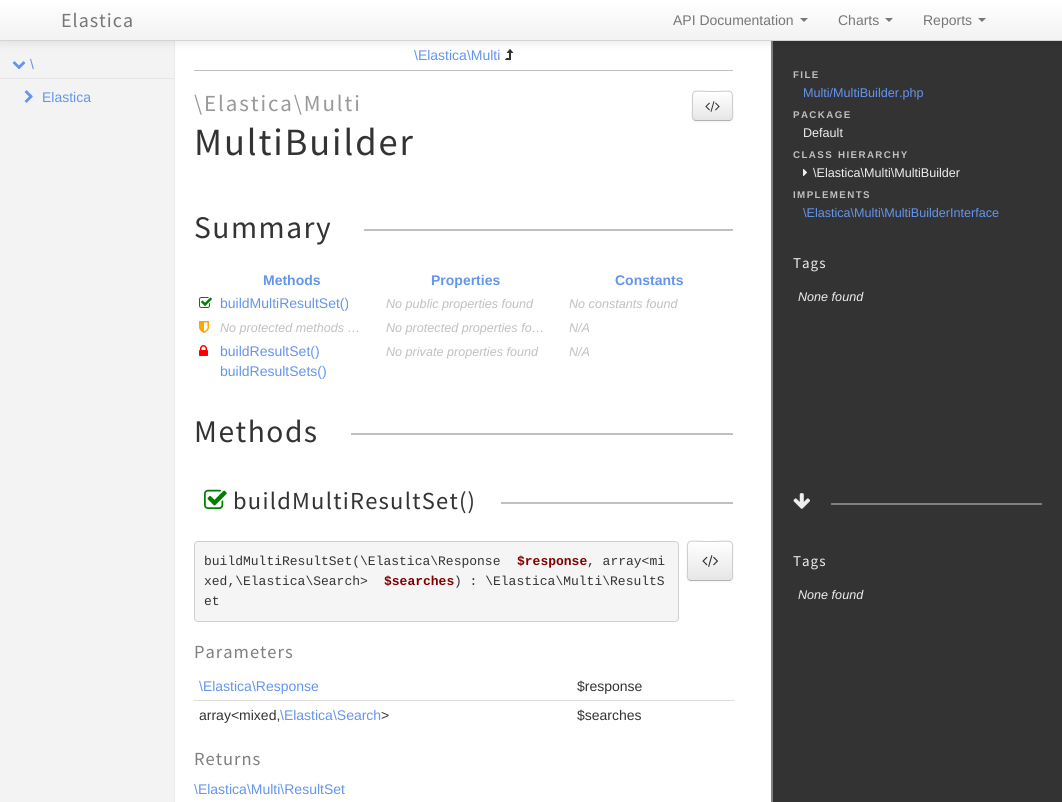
import math
import cairo



def draw_spaced(context, x, y, s, letter, word):
    context.move_to(x, y)
    for ch in s:
        context.show_text(ch)
        context.rel_move_to(letter + word * (ch == ' '), 0)


def rounded_rect(context, x, y, w, h, r):
    context.new_sub_path()
    for i, (u, v) in enumerate([(x + w - r, y + h - r), (x + r, y + h - r), (x + r, y + r), (x + w - r, y + r)]):
        context.arc(u, v, r, i * math.pi / 2, (i + 1) * math.pi / 2)
    context.close_path()


def draw_shadow(context, x, y, w, h, r, blur, alpha):
    context.push_group_with_content(cairo.Content.ALPHA)
    context.set_operator(cairo.Operator.SOURCE)
    for i in range(15, -16, -2):
        e = blur * i / 6
        if min(w, h) + 2 * e > 0:
            context.set_source_rgba(0, 0, 0, alpha * math.erfc((i - 1) / 8.5) / 2)
            rounded_rect(context, x - e, y - e, w + 2 * e, h + 2 * e, max(0, min(r + e + blur * .6, min(w, h) / 2 + e)))
            context.fill()
    context.mask(context.pop_group())


def draw_image(context, path, x, y, w, h):
    context.save()
    context.set_source_surface(cairo.ImageSurface.create_from_png(path), x, y)
    context.rectangle(x, y, w, h)
    context.fill()
    context.restore()


def draw(context):
    context.set_source_rgb(51 / 255, 51 / 255, 51 / 255)
    context.paint()
    context.set_source_rgb(243 / 255, 243 / 255, 243 / 255)
    context.rectangle(0, 41, 174, 761)
    context.fill()
    context.set_source_rgb(233 / 255, 233 / 255, 233 / 255)
    context.rectangle(174, 40, 1, 762)
    context.fill()
    context.set_source_rgb(1, 1, 1)
    context.rectangle(175, 41, 596, 761)
    context.fill()
    draw_image(context, "images/3.png", 505, 49, 8, 11)
    context.set_source_rgb(128 / 255, 128 / 255, 128 / 255)
    context.rectangle(771, 40, 2, 762)
    context.fill()
    context.set_source_rgb(0, 0, 0)
    draw_shadow(context, 0, 1, 1062, 41, 0, 5, 0.1)
    gradient = cairo.LinearGradient(531, 0, 531, 40)
    gradient.add_color_stop_rgba(0, 1, 1, 1, 1)
    gradient.add_color_stop_rgba(1, 242 / 255, 242 / 255, 242 / 255, 1)
    context.set_source(gradient)
    context.rectangle(0, 0, 1062, 40)
    context.fill()
    context.set_source_rgb(212 / 255, 212 / 255, 212 / 255)
    context.rectangle(0, 40, 1062, 1)
    context.fill()
    context.set_source_rgb(119 / 255, 119 / 255, 119 / 255)
    context.new_path()
    context.move_to(800, 18)
    context.line_to(808, 18)
    context.line_to(804, 22)
    context.close_path()
    context.fill()
    context.new_path()
    context.move_to(885, 18)
    context.line_to(893, 18)
    context.line_to(889, 22)
    context.close_path()
    context.fill()
    context.new_path()
    context.move_to(978, 18)
    context.line_to(986, 18)
    context.line_to(982, 22)
    context.close_path()
    context.fill()
    draw_image(context, "images/1.png", 12, 61, 14, 9)
    context.set_source_rgb(229 / 255, 229 / 255, 229 / 255)
    context.rectangle(0, 78, 174, 1)
    context.fill()
    draw_image(context, "images/2.png", 24, 90, 9, 13)
    context.set_source_rgb(192 / 255, 192 / 255, 192 / 255)
    context.rectangle(194, 70, 539, 1)
    context.fill()
    context.set_source_rgb(0, 0, 0)
    draw_shadow(context, 692, 92, 41, 30, 4, 1, 0.05)
    context.set_source_rgb(245 / 255, 245 / 255, 245 / 255)
    rounded_rect(context, 692, 91, 41, 30, 4)
    context.fill()
    context.save()
    rounded_rect(context, 692, 91, 41, 30, 4)
    context.clip()
    gradient = cairo.LinearGradient(713, 92, 713, 120)
    gradient.add_color_stop_rgba(0, 1, 1, 1, 1)
    gradient.add_color_stop_rgba(1, 230 / 255, 230 / 255, 230 / 255, 1)
    context.set_source(gradient)
    context.rectangle(692, 92, 41, 28)
    context.fill()
    context.restore()
    context.new_path()
    context.move_to(731.5, 119.5)
    context.curve_to(731, 120, 730, 120.5, 729, 120.5)
    context.line_to(696, 120.5)
    context.curve_to(695, 120.5, 694, 120, 693.5, 119.5)
    context.set_source_rgb(179 / 255, 179 / 255, 179 / 255)
    context.set_line_width(1)
    context.stroke()
    context.new_path()
    context.move_to(693.5, 119.5)
    context.curve_to(691.5, 117.5, 692.5, 109, 692.5, 106)
    context.curve_to(692.5, 87, 691, 91.5, 712.5, 91.5)
    context.curve_to(734, 91.5, 732.5, 87, 732.5, 106)
    context.curve_to(732.5, 109, 733.5, 117.5, 731.5, 119.5)
    context.set_source_rgb(204 / 255, 204 / 255, 204 / 255)
    context.stroke()
    draw_image(context, "images/4.png", 705, 101, 15, 11)
    context.set_source_rgb(192 / 255, 192 / 255, 192 / 255)
    context.rectangle(364, 229, 369, 2)
    context.fill()
    draw_image(context, "images/5.png", 199, 297, 13, 11)
    draw_image(context, "images/6.png", 199, 321, 10, 12)
    draw_image(context, "images/7.png", 199, 345, 9, 11)
    draw_image(context, "images/8.png", 803, 169, 4, 7)
    context.rectangle(351, 433, 382, 2)
    context.fill()
    draw_image(context, "images/9.png", 204, 489, 23, 20)
    context.rectangle(501, 502, 232, 2)
    context.fill()
    context.set_source_rgb(245 / 255, 245 / 255, 245 / 255)
    rounded_rect(context, 194, 541, 485, 81, 4)
    context.fill()
    rounded_rect(context, 194.5, 541.5, 484, 80, 3.5)
    context.set_source_rgba(0, 0, 0, 0.15)
    context.stroke()
    context.set_source_rgb(0, 0, 0)
    draw_shadow(context, 687, 542, 46, 40, 4, 1, 0.05)
    context.set_source_rgb(245 / 255, 245 / 255, 245 / 255)
    rounded_rect(context, 687, 541, 46, 40, 4)
    context.fill()
    context.save()
    rounded_rect(context, 687, 541, 46, 40, 4)
    context.clip()
    gradient = cairo.LinearGradient(710, 542, 710, 580)
    gradient.add_color_stop_rgba(0, 1, 1, 1, 1)
    gradient.add_color_stop_rgba(1, 230 / 255, 230 / 255, 230 / 255, 1)
    context.set_source(gradient)
    context.rectangle(687, 542, 46, 38)
    context.fill()
    context.restore()
    context.new_path()
    context.move_to(731.5, 579.5)
    context.curve_to(731, 580, 730, 580.5, 729, 580.5)
    context.line_to(691, 580.5)
    context.curve_to(690, 580.5, 689, 580, 688.5, 579.5)
    context.set_source_rgb(179 / 255, 179 / 255, 179 / 255)
    context.stroke()
    context.new_path()
    context.move_to(688.5, 579.5)
    context.curve_to(686.5, 577.5, 687.5, 573.5, 687.5, 571.5)
    context.line_to(687.5, 561)
    context.curve_to(687.5, 536.5, 684, 541.5, 710, 541.5)
    context.curve_to(736, 541.5, 732.5, 536.5, 732.5, 561)
    context.line_to(732.5, 571.5)
    context.curve_to(732.5, 573.5, 733.5, 577.5, 731.5, 579.5)
    context.set_source_rgb(204 / 255, 204 / 255, 204 / 255)
    context.stroke()
    draw_image(context, "images/10.png", 702, 555, 16, 12)
    context.set_source_rgb(221 / 255, 221 / 255, 221 / 255)
    context.rectangle(194, 700, 540, 1)
    context.fill()
    draw_image(context, "images/11.png", 793, 493, 17, 16)
    context.set_source_rgb(128 / 255, 128 / 255, 128 / 255)
    context.rectangle(831, 503, 211, 2)
    context.fill()
    context.select_font_face("Source Sans Pro")
    context.set_font_size(20)
    context.set_source_rgb(119 / 255, 119 / 255, 119 / 255)
    draw_spaced(context, 61, 27, "Elastica", 1, 0)
    context.select_font_face("Liberation Sans")
    context.set_font_size(14)
    context.move_to(673, 25)
    context.show_text("API Documentation")
    context.move_to(838, 25)
    context.show_text("Charts")
    context.move_to(923, 25)
    context.show_text("Reports")
    context.set_source_rgb(100 / 255, 149 / 255, 237 / 255)
    context.move_to(30, 69)
    context.show_text("\\")
    context.move_to(42, 102)
    context.show_text("Elastica")
    context.move_to(414, 60)
    context.show_text("\\Elastica\\Multi")
    context.select_font_face("Source Sans Pro")
    context.set_font_size(23)
    context.set_source_rgb(153 / 255, 153 / 255, 153 / 255)
    draw_spaced(context, 194, 111, "\\Elastica\\Multi", 1.9, 0)
    context.set_font_size(38.5)
    context.set_source_rgb(51 / 255, 51 / 255, 51 / 255)
    draw_spaced(context, 194, 155, "MultiBuilder", 1.9, 0)
    context.set_font_size(31.5)
    draw_spaced(context, 194, 238, "Summary", 1.5, 0)
    context.select_font_face("Liberation Sans", cairo.FontSlant.NORMAL, cairo.FontWeight.BOLD)
    context.set_font_size(14)
    context.set_source_rgb(100 / 255, 149 / 255, 237 / 255)
    context.move_to(263, 285)
    context.show_text("Methods")
    context.move_to(431, 285)
    context.show_text("Properties")
    context.move_to(615, 285)
    context.show_text("Constants")
    context.select_font_face("Liberation Sans")
    context.move_to(220, 308)
    context.show_text("buildMultiResultSet()")
    context.select_font_face("Liberation Sans", cairo.FontSlant.ITALIC)
    context.set_font_size(12.6)
    context.set_source_rgb(192 / 255, 192 / 255, 192 / 255)
    context.move_to(386, 308)
    context.show_text("No public properties found")
    context.move_to(569, 308)
    context.show_text("No constants found")
    context.move_to(220, 332)
    context.show_text("No protected methods …")
    context.move_to(386, 332)
    context.show_text("No protected properties fo…")
    context.move_to(569, 332)
    context.show_text("N/A")
    context.select_font_face("Liberation Sans")
    context.set_font_size(14)
    context.set_source_rgb(100 / 255, 149 / 255, 237 / 255)
    context.move_to(220, 356)
    context.show_text("buildResultSet()")
    context.move_to(220, 376)
    context.show_text("buildResultSets()")
    context.select_font_face("Liberation Sans", cairo.FontSlant.ITALIC)
    context.set_font_size(12.6)
    context.set_source_rgb(192 / 255, 192 / 255, 192 / 255)
    context.move_to(386, 356)
    context.show_text("No private properties found")
    context.move_to(569, 356)
    context.show_text("N/A")
    context.select_font_face("Liberation Sans", cairo.FontSlant.NORMAL, cairo.FontWeight.BOLD)
    context.set_font_size(9.75)
    draw_spaced(context, 793, 78, "FILE", 1.4, 0)
    context.select_font_face("Liberation Sans")
    context.set_font_size(12.6)
    context.set_source_rgb(100 / 255, 149 / 255, 237 / 255)
    context.move_to(803, 97)
    context.show_text("Multi/MultiBuilder.php")
    context.select_font_face("Liberation Sans", cairo.FontSlant.NORMAL, cairo.FontWeight.BOLD)
    context.set_font_size(9.75)
    context.set_source_rgb(192 / 255, 192 / 255, 192 / 255)
    draw_spaced(context, 793, 118, "PACKAGE", 1.4, 0)
    context.select_font_face("Liberation Sans")
    context.set_font_size(12.6)
    context.set_source_rgb(238 / 255, 238 / 255, 238 / 255)
    context.move_to(803, 137)
    context.show_text("Default")
    context.select_font_face("Liberation Sans", cairo.FontSlant.NORMAL, cairo.FontWeight.BOLD)
    context.set_font_size(9.75)
    context.set_source_rgb(192 / 255, 192 / 255, 192 / 255)
    draw_spaced(context, 793, 158, "CLASS", 1.4, 0)
    draw_spaced(context, 838, 158, "HIERARCHY", 1.4, 0)
    context.select_font_face("Liberation Sans")
    context.set_font_size(12.6)
    context.set_source_rgb(238 / 255, 238 / 255, 238 / 255)
    context.move_to(813, 177)
    context.show_text("\\Elastica\\Multi\\MultiBuilder")
    context.select_font_face("Liberation Sans", cairo.FontSlant.NORMAL, cairo.FontWeight.BOLD)
    context.set_font_size(9.75)
    context.set_source_rgb(192 / 255, 192 / 255, 192 / 255)
    draw_spaced(context, 793, 198, "IMPLEMENTS", 1.4, 0)
    context.select_font_face("Liberation Sans")
    context.set_font_size(12.6)
    context.set_source_rgb(100 / 255, 149 / 255, 237 / 255)
    context.move_to(803, 217)
    context.show_text("\\Elastica\\Multi\\MultiBuilderInterface")
    context.select_font_face("Source Sans Pro")
    context.set_font_size(15)
    context.set_source_rgb(238 / 255, 238 / 255, 238 / 255)
    draw_spaced(context, 793, 268, "Tags", 1, 0)
    context.select_font_face("Liberation Sans", cairo.FontSlant.ITALIC)
    context.set_font_size(12.6)
    context.move_to(798, 301)
    context.show_text("None found")
    context.select_font_face("Source Sans Pro")
    context.set_font_size(31.5)
    context.set_source_rgb(51 / 255, 51 / 255, 51 / 255)
    draw_spaced(context, 194, 442, "Methods", 1.5, 0)
    context.set_font_size(24.5)
    draw_spaced(context, 233, 509, "buildMultiResultSet()", 1.25, 0)
    context.select_font_face("Liberation Mono")
    context.set_font_size(13)
    context.move_to(204, 565)
    context.show_text("buildMultiResultSet(\\Elastica\\Response")
    context.select_font_face("Liberation Mono", cairo.FontSlant.NORMAL, cairo.FontWeight.BOLD)
    context.set_source_rgb(128 / 255, 0, 0)
    context.move_to(517, 565)
    context.show_text("$response")
    context.select_font_face("Liberation Mono")
    context.set_source_rgb(51 / 255, 51 / 255, 51 / 255)
    context.move_to(587, 565)
    context.show_text(", array<mi")
    context.move_to(204, 585)
    context.show_text("xed,\\Elastica\\Search>")
    context.select_font_face("Liberation Mono", cairo.FontSlant.NORMAL, cairo.FontWeight.BOLD)
    context.set_source_rgb(128 / 255, 0, 0)
    context.move_to(384, 585)
    context.show_text("$searches")
    context.select_font_face("Liberation Mono")
    context.set_source_rgb(51 / 255, 51 / 255, 51 / 255)
    context.move_to(454, 585)
    context.show_text(") : \\Elastica\\Multi\\ResultS")
    context.move_to(204, 605)
    context.show_text("et")
    context.select_font_face("Source Sans Pro")
    context.set_font_size(18.5)
    context.set_source_rgb(128 / 255, 128 / 255, 128 / 255)
    draw_spaced(context, 194, 658, "Parameters", 1, 0)
    context.select_font_face("Liberation Sans")
    context.set_font_size(14)
    context.set_source_rgb(100 / 255, 149 / 255, 237 / 255)
    context.move_to(199, 691)
    context.show_text("\\Elastica\\Response")
    context.set_source_rgb(51 / 255, 51 / 255, 51 / 255)
    context.move_to(577, 691)
    context.show_text("$response")
    context.move_to(199, 720)
    context.show_text("array<mixed,")
    context.set_source_rgb(100 / 255, 149 / 255, 237 / 255)
    context.move_to(280, 720)
    context.show_text("\\Elastica\\Search")
    context.set_source_rgb(51 / 255, 51 / 255, 51 / 255)
    context.move_to(381, 720)
    context.show_text(">")
    context.move_to(577, 720)
    context.show_text("$searches")
    context.select_font_face("Source Sans Pro")
    context.set_font_size(18.5)
    context.set_source_rgb(128 / 255, 128 / 255, 128 / 255)
    draw_spaced(context, 194, 765, "Returns", 1, 0)
    context.select_font_face("Liberation Sans")
    context.set_font_size(14)
    context.set_source_rgb(100 / 255, 149 / 255, 237 / 255)
    context.move_to(194, 794)
    context.show_text("\\Elastica\\Multi\\ResultSet")
    context.select_font_face("Source Sans Pro")
    context.set_font_size(15)
    context.set_source_rgb(238 / 255, 238 / 255, 238 / 255)
    draw_spaced(context, 793, 566, "Tags", 1, 0)
    context.select_font_face("Liberation Sans", cairo.FontSlant.ITALIC)
    context.set_font_size(12.6)
    context.move_to(798, 599)
    context.show_text("None found")


surface = cairo.ImageSurface(cairo.Format.RGB24, 1062, 802)
context = cairo.Context(surface)
options = cairo.FontOptions()
options.set_hint_metrics(cairo.HintMetrics.OFF)
options.set_hint_style(cairo.HintStyle.NONE)
context.set_font_options(options)
context.set_miter_limit(4)
draw(context)
surface.write_to_png("out.png")
